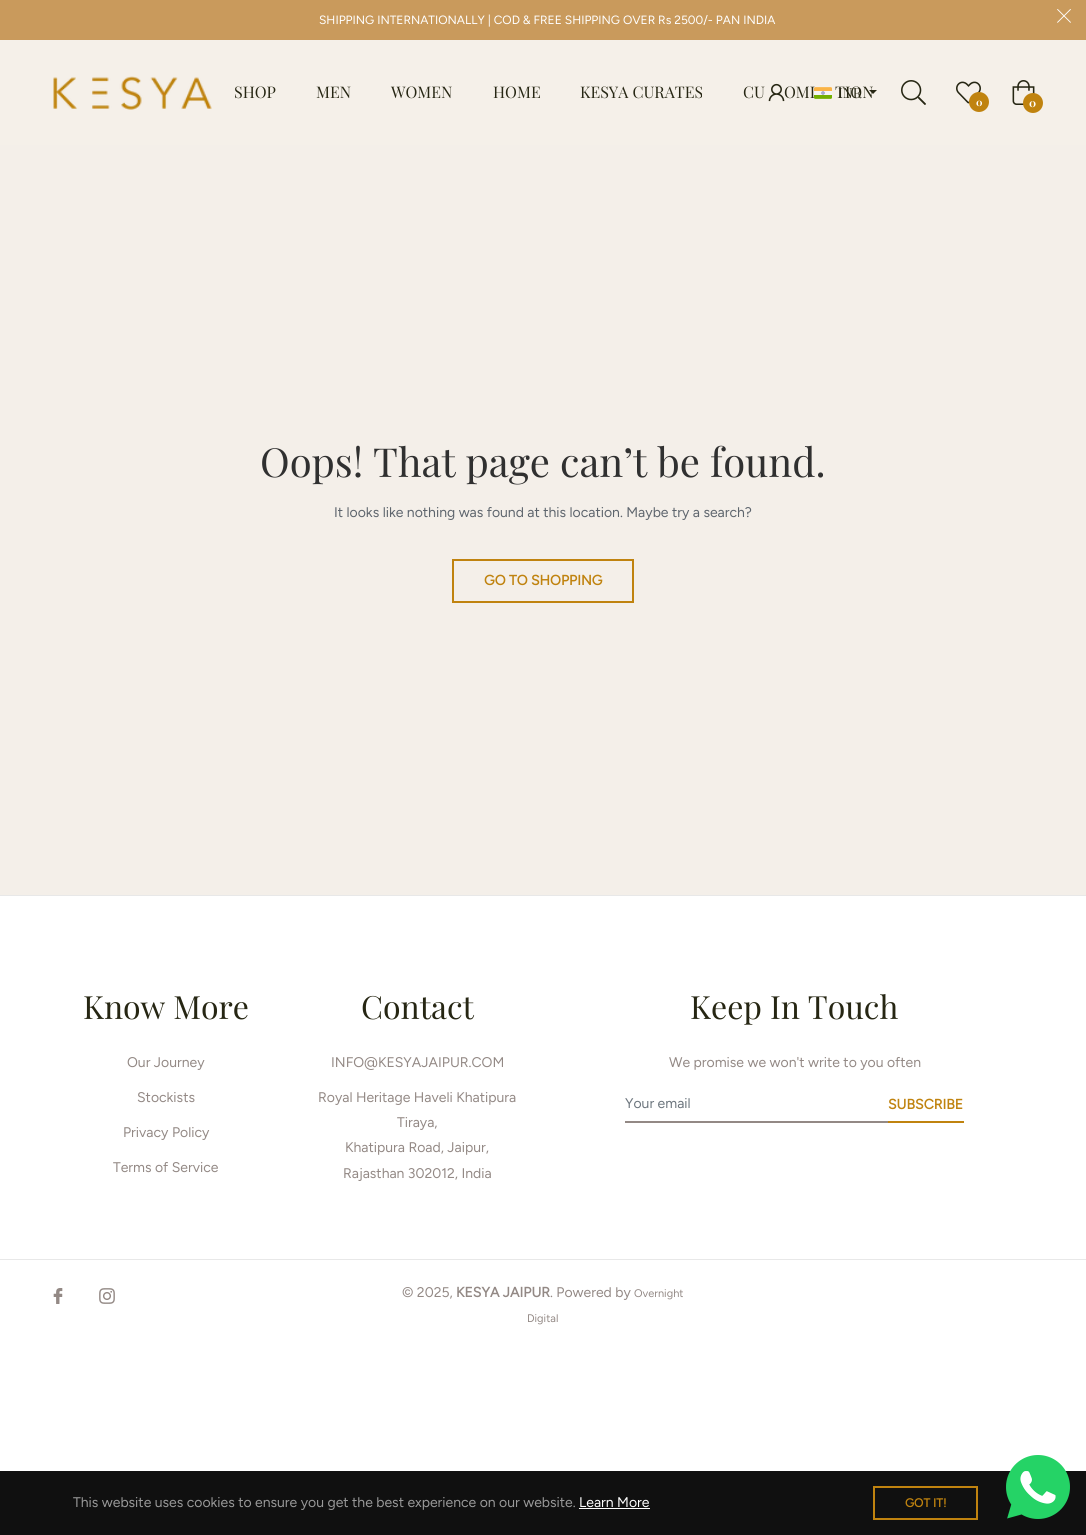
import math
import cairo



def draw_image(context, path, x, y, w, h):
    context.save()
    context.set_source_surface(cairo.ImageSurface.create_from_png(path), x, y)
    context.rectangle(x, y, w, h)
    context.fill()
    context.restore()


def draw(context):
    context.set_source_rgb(1, 1, 1)
    context.paint()
    context.set_source_rgb(201 / 255, 154 / 255, 92 / 255)
    context.rectangle(0, 0, 1086, 40)
    context.fill()
    draw_image(context, "images/1.png", 1057, 9, 14, 14)
    context.set_source_rgb(245 / 255, 240 / 255, 233 / 255)
    context.rectangle(0, 40, 1086, 105)
    context.fill()
    draw_image(context, "images/2.png", 53, 76, 159, 34)
    context.set_source_rgb(38 / 255, 38 / 255, 19 / 255)
    context.new_path()
    context.move_to(869, 90)
    context.line_to(877, 90)
    context.line_to(873, 94)
    context.close_path()
    context.fill()
    draw_image(context, "images/5.png", 901, 80, 25, 25)
    draw_image(context, "images/6.png", 956, 81, 25, 23)
    context.set_source_rgb(192 / 255, 131 / 255, 15 / 255)
    context.arc(979, 102, 10, 0, 2 * math.pi)
    context.fill()
    draw_image(context, "images/7.png", 1012, 80, 23, 25)
    context.arc(1033, 103, 10, 0, 2 * math.pi)
    context.fill()
    context.set_source_rgb(244 / 255, 239 / 255, 233 / 255)
    context.rectangle(0, 145, 1086, 750)
    context.fill()
    context.rectangle(453, 560, 180, 42)
    context.set_source_rgb(192 / 255, 131 / 255, 15 / 255)
    context.stroke()
    context.set_source_rgb(232 / 255, 232 / 255, 232 / 255)
    context.rectangle(0, 895, 1086, 1)
    context.fill()
    context.set_source_rgb(147 / 255, 137 / 255, 133 / 255)
    context.rectangle(625, 1121, 264, 2)
    context.fill()
    context.set_source_rgb(192 / 255, 131 / 255, 15 / 255)
    context.rectangle(888, 1121, 76, 2)
    context.fill()
    context.set_source_rgb(232 / 255, 232 / 255, 232 / 255)
    context.rectangle(0, 1259, 1086, 1)
    context.fill()
    draw_image(context, "images/8.png", 53, 1288, 10, 16)
    draw_image(context, "images/9.png", 99, 1288, 16, 16)
    context.set_source_rgb(16 / 255, 16 / 255, 16 / 255)
    context.rectangle(0, 1471, 1086, 64)
    context.fill()
    context.set_source_rgb(1, 1, 1)
    context.rectangle(579, 1508, 71, 1)
    context.fill()
    context.rectangle(874, 1487, 103, 32)
    context.set_source_rgb(192 / 255, 131 / 255, 15 / 255)
    context.stroke()
    draw_image(context, "images/10.png", 1006, 1455, 64, 64)
    context.select_font_face("Figtree")
    context.set_font_size(12)
    context.set_source_rgb(1, 1, 1)
    context.move_to(319, 24)
    context.show_text("SHIPPING INTERNATIONALLY | COD & FREE SHIPPING OVER Rs 2500/- PAN INDIA")
    context.select_font_face("Playfair Display")
    context.set_font_size(16)
    context.set_source_rgb(38 / 255, 38 / 255, 19 / 255)
    context.move_to(234, 98)
    context.show_text("SHOP")
    context.move_to(316, 98)
    context.show_text("MEN")
    context.move_to(391, 98)
    context.show_text("WOMEN")
    context.move_to(493, 98)
    context.show_text("HOME")
    context.move_to(580, 98)
    context.show_text("KESYA CURATES")
    context.move_to(743, 98)
    context.show_text("CU")
    context.move_to(784, 98)
    context.show_text("OMI")
    context.move_to(835, 98)
    context.show_text("TION")
    draw_image(context, "images/3.png", 768, 83, 17, 19)
    draw_image(context, "images/4.png", 814, 87, 18, 12)
    context.set_font_size(14)
    context.move_to(838, 98)
    context.show_text("INR")
    context.select_font_face("Playfair Display", cairo.FontSlant.NORMAL, cairo.FontWeight.BOLD)
    context.set_font_size(10)
    context.set_source_rgb(1, 1, 1)
    context.move_to(976, 106)
    context.show_text("0")
    context.set_font_size(11)
    context.move_to(1029, 107)
    context.show_text("0")
    context.select_font_face("Playfair Display")
    context.set_font_size(40)
    context.set_source_rgb(48 / 255, 48 / 255, 48 / 255)
    context.move_to(260, 477)
    context.show_text("Oops! That page can’t be found.")
    context.select_font_face("Figtree")
    context.set_font_size(14)
    context.set_source_rgb(94 / 255, 101 / 255, 109 / 255)
    context.move_to(334, 517)
    context.show_text("It looks like nothing was found at this location. Maybe try a search?")
    context.select_font_face("Figtree", cairo.FontSlant.NORMAL, cairo.FontWeight.BOLD)
    context.set_source_rgb(192 / 255, 131 / 255, 15 / 255)
    context.move_to(484, 585)
    context.show_text("GO TO SHOPPING")
    context.select_font_face("Playfair Display")
    context.set_font_size(32)
    context.set_source_rgb(38 / 255, 38 / 255, 19 / 255)
    context.move_to(83, 1019)
    context.show_text("Know More")
    context.select_font_face("Figtree")
    context.set_font_size(14)
    context.set_source_rgb(147 / 255, 137 / 255, 133 / 255)
    context.move_to(127, 1067)
    context.show_text("Our Journey")
    context.move_to(137, 1102)
    context.show_text("Stockists")
    context.move_to(123, 1137)
    context.show_text("Privacy Policy")
    context.move_to(113, 1172)
    context.show_text("Terms of Service")
    context.select_font_face("Playfair Display")
    context.set_font_size(32)
    context.set_source_rgb(38 / 255, 38 / 255, 19 / 255)
    context.move_to(361, 1019)
    context.show_text("Contact")
    context.select_font_face("Figtree")
    context.set_font_size(14)
    context.set_source_rgb(147 / 255, 137 / 255, 133 / 255)
    context.move_to(331, 1067)
    context.show_text("INFO@KESYAJAIPUR.COM")
    context.move_to(318, 1102)
    context.show_text("Royal Heritage Haveli Khatipura")
    context.move_to(397, 1127)
    context.show_text("Tiraya,")
    context.move_to(345, 1152)
    context.show_text("Khatipura Road, Jaipur,")
    context.move_to(343, 1178)
    context.show_text("Rajasthan 302012, India")
    context.select_font_face("Playfair Display")
    context.set_font_size(32)
    context.set_source_rgb(38 / 255, 38 / 255, 19 / 255)
    context.move_to(690, 1019)
    context.show_text("Keep In Touch")
    context.select_font_face("Figtree")
    context.set_font_size(14)
    context.set_source_rgb(147 / 255, 137 / 255, 133 / 255)
    context.move_to(669, 1067)
    context.show_text("We promise we won't write to you often")
    context.set_source_rgb(108 / 255, 117 / 255, 125 / 255)
    context.move_to(625, 1108)
    context.show_text("Your email")
    context.select_font_face("Figtree", cairo.FontSlant.NORMAL, cairo.FontWeight.BOLD)
    context.set_source_rgb(192 / 255, 131 / 255, 15 / 255)
    context.move_to(888, 1109)
    context.show_text("SUBSCRIBE")
    context.select_font_face("Figtree")
    context.set_source_rgb(147 / 255, 137 / 255, 133 / 255)
    context.move_to(402, 1297)
    context.show_text("© 2025,")
    context.select_font_face("Figtree", cairo.FontSlant.NORMAL, cairo.FontWeight.BOLD)
    context.move_to(456, 1297)
    context.show_text("KESYA JAIPUR")
    context.select_font_face("Figtree")
    context.move_to(550, 1297)
    context.show_text(". Powered by")
    context.set_font_size(11)
    context.move_to(634, 1297)
    context.show_text("Overnight")
    context.move_to(527, 1322)
    context.show_text("Digital")
    context.set_font_size(14)
    context.set_source_rgb(153 / 255, 153 / 255, 153 / 255)
    context.move_to(73, 1507)
    context.show_text("This website uses cookies to ensure you get the best experience on our website.")
    context.set_source_rgb(1, 1, 1)
    context.move_to(579, 1507)
    context.show_text("Learn More")
    context.select_font_face("Figtree", cairo.FontSlant.NORMAL, cairo.FontWeight.BOLD)
    context.set_font_size(12)
    context.set_source_rgb(192 / 255, 131 / 255, 15 / 255)
    context.move_to(905, 1507)
    context.show_text("GOT IT!")


surface = cairo.ImageSurface(cairo.Format.RGB24, 1086, 1535)
context = cairo.Context(surface)
options = cairo.FontOptions()
options.set_hint_metrics(cairo.HintMetrics.OFF)
options.set_hint_style(cairo.HintStyle.NONE)
context.set_font_options(options)
context.set_miter_limit(4)
draw(context)
surface.write_to_png("out.png")
